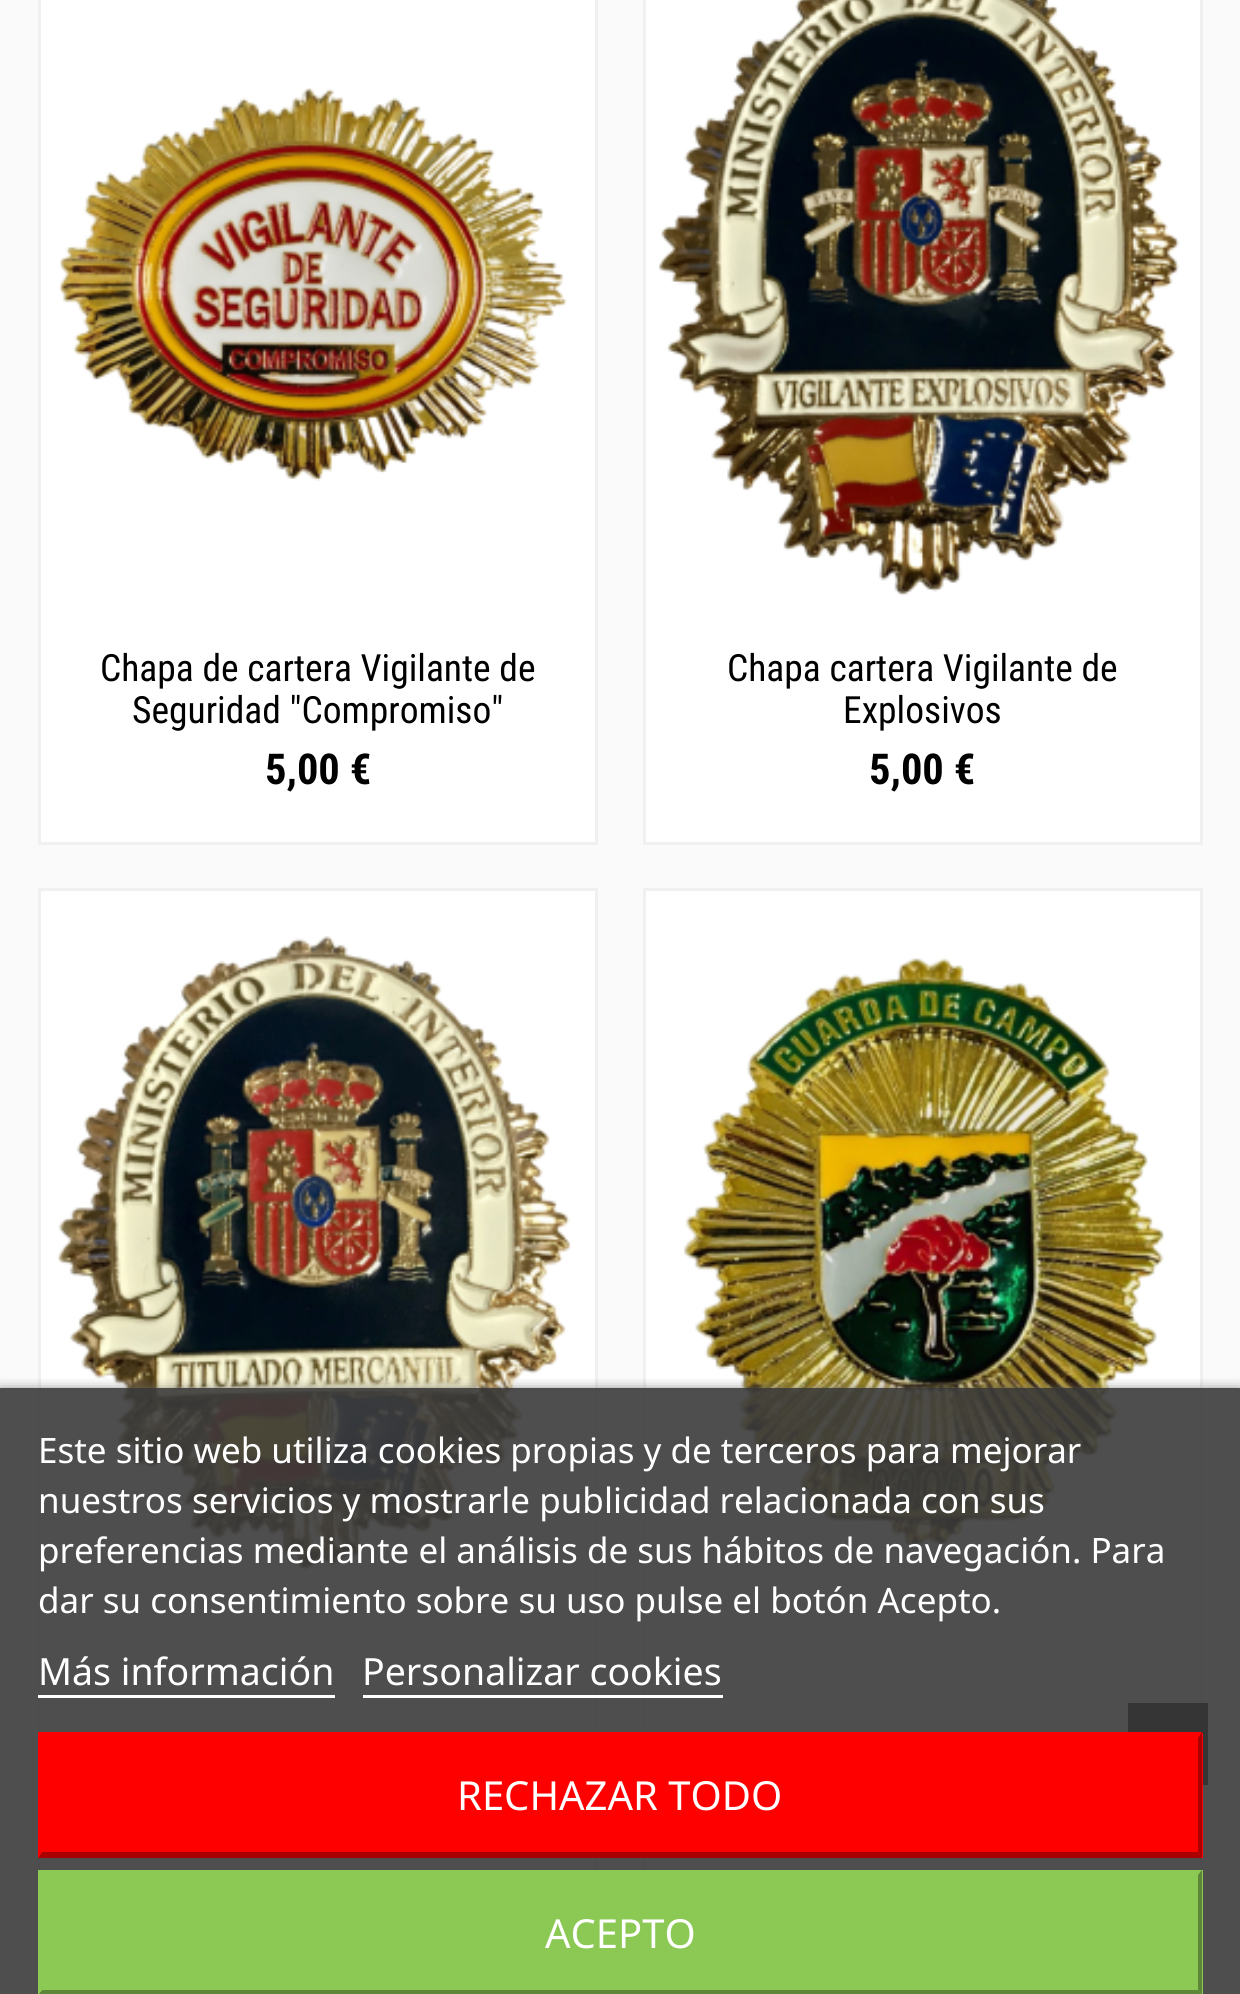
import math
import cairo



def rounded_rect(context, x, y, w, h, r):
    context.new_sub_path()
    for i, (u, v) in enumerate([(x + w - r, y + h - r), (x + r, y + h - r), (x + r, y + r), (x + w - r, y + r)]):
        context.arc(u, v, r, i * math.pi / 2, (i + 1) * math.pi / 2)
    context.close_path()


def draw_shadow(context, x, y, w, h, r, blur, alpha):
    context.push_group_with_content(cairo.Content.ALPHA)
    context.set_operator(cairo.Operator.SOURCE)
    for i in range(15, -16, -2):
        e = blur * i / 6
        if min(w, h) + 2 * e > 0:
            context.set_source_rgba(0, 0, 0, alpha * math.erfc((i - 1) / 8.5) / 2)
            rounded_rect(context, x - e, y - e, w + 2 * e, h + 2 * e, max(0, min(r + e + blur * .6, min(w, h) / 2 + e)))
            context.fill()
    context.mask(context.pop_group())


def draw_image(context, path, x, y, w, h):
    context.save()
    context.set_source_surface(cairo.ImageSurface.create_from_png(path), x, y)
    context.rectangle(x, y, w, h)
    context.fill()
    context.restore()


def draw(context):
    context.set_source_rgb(250 / 255, 250 / 255, 250 / 255)
    context.paint()
    context.set_source_rgb(1, 1, 1)
    context.rectangle(39.5, -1.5, 557, 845)
    context.fill_preserve()
    context.set_source_rgb(240 / 255, 240 / 255, 240 / 255)
    context.set_line_width(3)
    context.stroke()
    draw_image(context, "images/1.png", 59, 88, 508, 393)
    context.set_source_rgb(1, 1, 1)
    context.rectangle(644.5, -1.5, 557, 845)
    context.fill_preserve()
    context.set_source_rgb(240 / 255, 240 / 255, 240 / 255)
    context.stroke()
    draw_image(context, "images/2.png", 659, 0, 521, 596)
    context.set_source_rgb(1, 1, 1)
    context.rectangle(41, 891, 554, 841)
    context.fill()
    context.rectangle(39.5, 889.5, 557, 919)
    context.set_source_rgb(240 / 255, 240 / 255, 240 / 255)
    context.stroke()
    draw_image(context, "images/3.png", 57, 936, 515, 635)
    context.set_source_rgb(1, 1, 1)
    context.rectangle(646, 891, 554, 841)
    context.fill()
    context.rectangle(644.5, 889.5, 557, 919)
    context.set_source_rgb(240 / 255, 240 / 255, 240 / 255)
    context.stroke()
    draw_image(context, "images/4.png", 683, 958, 481, 588)
    context.set_source_rgb(1, 1, 1)
    context.rectangle(41, 1858, 554, 12)
    context.fill()
    context.rectangle(39.5, 1854.5, 557, 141)
    context.set_source_rgb(240 / 255, 240 / 255, 240 / 255)
    context.stroke()
    context.set_source_rgb(1, 1, 1)
    context.rectangle(646, 1858, 554, 12)
    context.fill()
    context.rectangle(644.5, 1854.5, 557, 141)
    context.set_source_rgb(240 / 255, 240 / 255, 240 / 255)
    context.stroke()
    context.set_source_rgb(0, 0, 0)
    context.rectangle(1128, 1703, 80, 82)
    context.fill()
    context.save()
    context.rectangle(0, 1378, 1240, 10)
    context.clip()
    context.set_source_rgb(112 / 255, 112 / 255, 112 / 255)
    draw_shadow(context, 0, 1390, 1240, 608, 0, 6, 1)
    context.restore()
    context.set_source_rgba(59 / 255, 59 / 255, 59 / 255, 0.9)
    context.rectangle(0, 1388, 1240, 606)
    context.fill()
    context.set_source_rgb(1, 1, 1)
    context.rectangle(38, 1695, 297, 3)
    context.fill()
    context.rectangle(363, 1695, 360, 3)
    context.fill()
    context.set_source_rgb(1, 0, 0)
    context.rectangle(38, 1733, 1165, 125)
    context.fill()
    context.new_path()
    context.move_to(38, 1732)
    context.line_to(1202, 1732)
    context.line_to(1198, 1738)
    context.line_to(42, 1738)
    context.close_path()
    context.fill()
    context.set_source_rgb(170 / 255, 0, 0)
    context.new_path()
    context.move_to(1202, 1732)
    context.line_to(1202, 1858)
    context.line_to(1198, 1852)
    context.line_to(1198, 1738)
    context.close_path()
    context.fill()
    context.new_path()
    context.move_to(1202, 1858)
    context.line_to(38, 1858)
    context.line_to(42, 1852)
    context.line_to(1198, 1852)
    context.close_path()
    context.fill()
    context.set_source_rgb(1, 0, 0)
    context.new_path()
    context.move_to(38, 1858)
    context.line_to(38, 1732)
    context.line_to(42, 1738)
    context.line_to(42, 1852)
    context.close_path()
    context.fill()
    context.set_source_rgb(139 / 255, 201 / 255, 84 / 255)
    context.rectangle(38, 1870, 1165, 124)
    context.fill()
    context.set_source_rgb(93 / 255, 134 / 255, 56 / 255)
    context.new_path()
    context.move_to(1202, 1870)
    context.line_to(1202, 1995)
    context.line_to(1198, 1990)
    context.line_to(1198, 1875)
    context.close_path()
    context.fill()
    context.new_path()
    context.move_to(1202, 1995)
    context.line_to(38, 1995)
    context.line_to(42, 1990)
    context.line_to(1198, 1990)
    context.close_path()
    context.fill()
    context.set_source_rgb(139 / 255, 201 / 255, 84 / 255)
    context.new_path()
    context.move_to(38, 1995)
    context.line_to(38, 1870)
    context.line_to(42, 1875)
    context.line_to(42, 1990)
    context.close_path()
    context.fill()
    context.select_font_face("Roboto Condensed")
    context.set_font_size(37.5)
    context.set_source_rgb(0, 0, 0)
    context.move_to(100, 681)
    context.show_text("Chapa de cartera Vigilante de")
    context.move_to(132, 723)
    context.show_text("Seguridad \"Compromiso\"")
    context.select_font_face("Roboto Condensed", cairo.FontSlant.NORMAL, cairo.FontWeight.BOLD)
    context.set_font_size(42.5)
    context.move_to(265, 784)
    context.show_text("5,00 €")
    context.select_font_face("Roboto Condensed")
    context.set_font_size(37.5)
    context.move_to(727, 681)
    context.show_text("Chapa cartera Vigilante de")
    context.move_to(843, 723)
    context.show_text("Explosivos")
    context.select_font_face("Roboto Condensed", cairo.FontSlant.NORMAL, cairo.FontWeight.BOLD)
    context.set_font_size(42.5)
    context.move_to(869, 784)
    context.show_text("5,00 €")
    context.select_font_face("Noto Sans")
    context.set_font_size(35)
    context.set_source_rgb(1, 1, 1)
    context.move_to(38, 1463)
    context.show_text("Este sitio web utiliza cookies propias y de terceros para mejorar")
    context.move_to(38, 1513)
    context.show_text("nuestros servicios y mostrarle publicidad relacionada con sus")
    context.move_to(38, 1563)
    context.show_text("preferencias mediante el análisis de sus hábitos de navegación. Para")
    context.move_to(38, 1613)
    context.show_text("dar su consentimiento sobre su uso pulse el botón Acepto.")
    context.set_font_size(37.5)
    context.move_to(38, 1685)
    context.show_text("Más información")
    context.move_to(362, 1685)
    context.show_text("Personalizar cookies")
    context.set_font_size(40)
    context.move_to(457, 1810)
    context.show_text("RECHAZAR TODO")
    context.move_to(545, 1948)
    context.show_text("ACEPTO")


surface = cairo.ImageSurface(cairo.Format.RGB24, 1240, 1994)
context = cairo.Context(surface)
options = cairo.FontOptions()
options.set_hint_metrics(cairo.HintMetrics.OFF)
options.set_hint_style(cairo.HintStyle.NONE)
context.set_font_options(options)
context.set_miter_limit(4)
draw(context)
surface.write_to_png("out.png")
